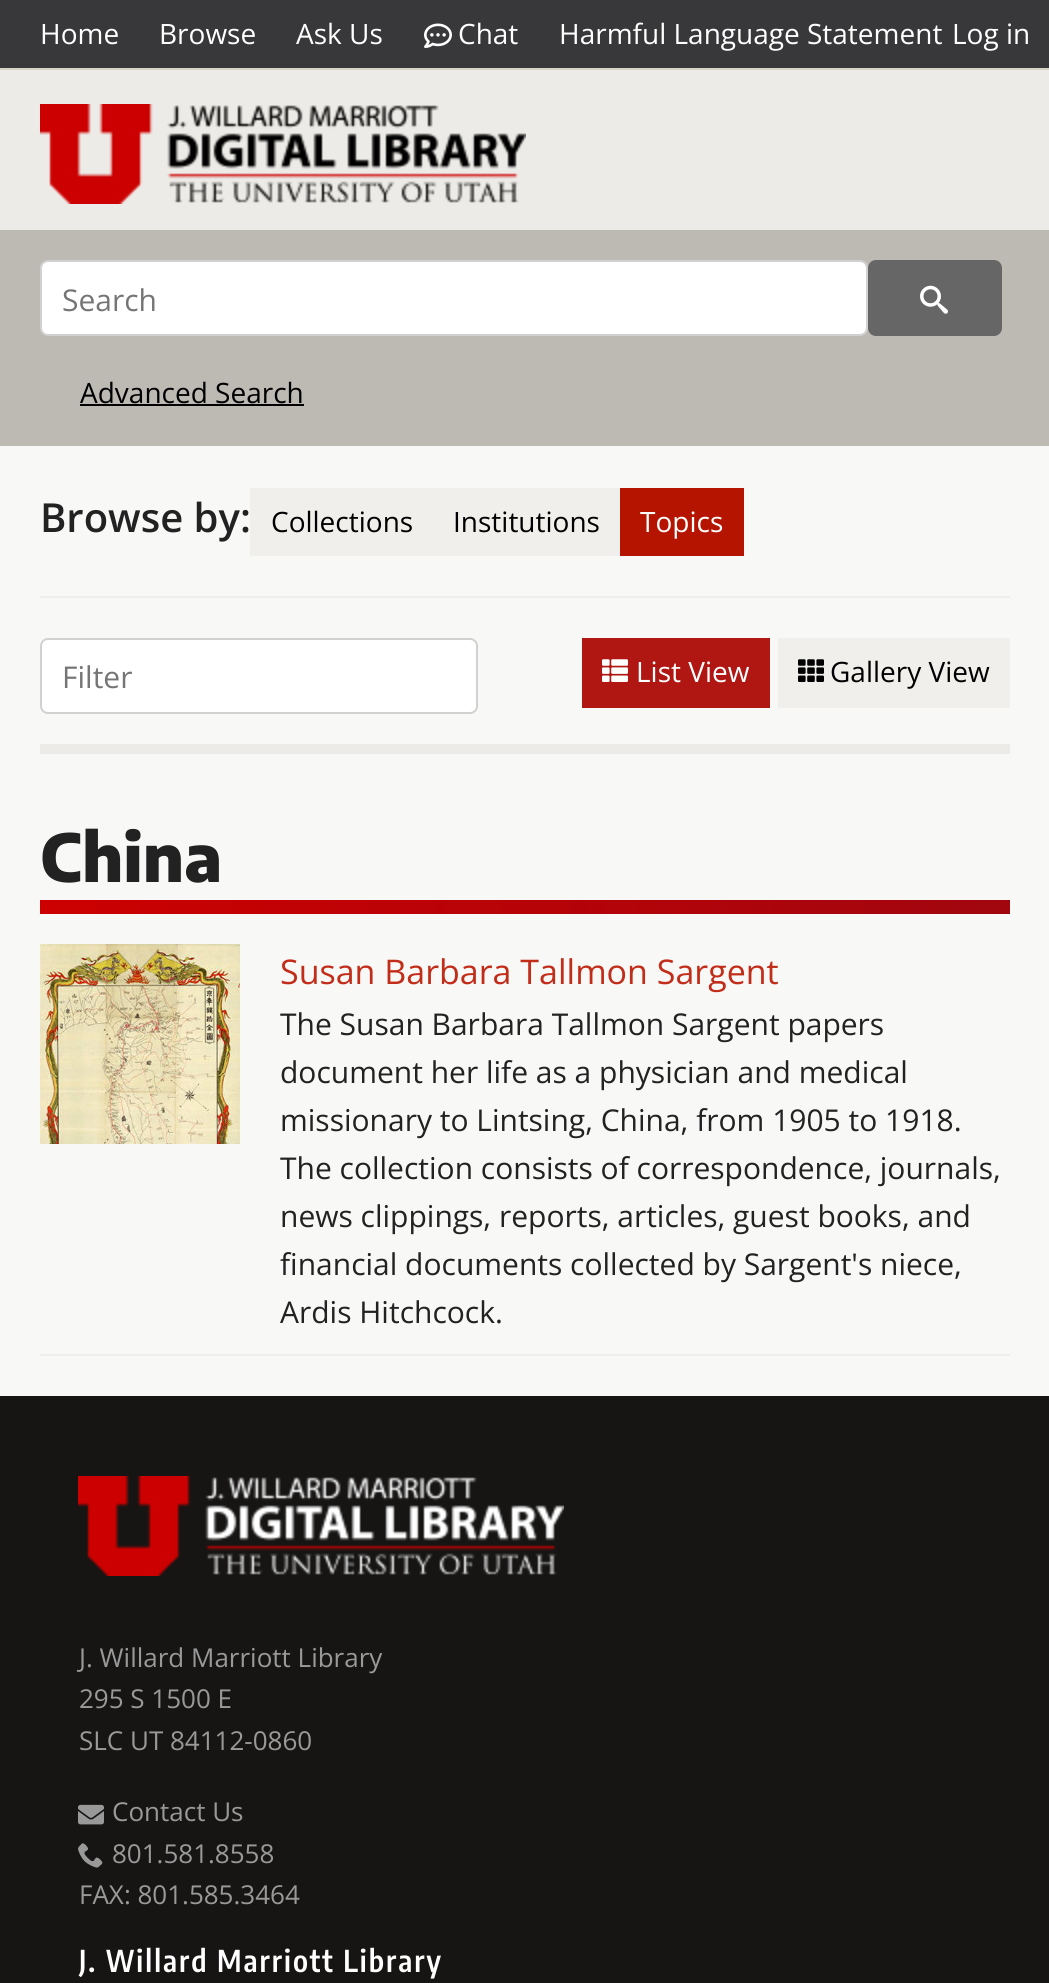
import math
import cairo



def draw_spaced(context, x, y, s, letter, word):
    context.move_to(x, y)
    for ch in s:
        context.show_text(ch)
        context.rel_move_to(letter + word * (ch == ' '), 0)


def rounded_rect(context, x, y, w, h, r):
    context.new_sub_path()
    for i, (u, v) in enumerate([(x + w - r, y + h - r), (x + r, y + h - r), (x + r, y + r), (x + w - r, y + r)]):
        context.arc(u, v, r, i * math.pi / 2, (i + 1) * math.pi / 2)
    context.close_path()


def draw_image(context, path, x, y, w, h):
    context.save()
    context.set_source_surface(cairo.ImageSurface.create_from_png(path), x, y)
    context.rectangle(x, y, w, h)
    context.fill()
    context.restore()


def draw(context):
    context.set_source_rgb(248 / 255, 248 / 255, 247 / 255)
    context.paint()
    context.set_source_rgb(56 / 255, 55 / 255, 57 / 255)
    context.rectangle(0, 0, 1049, 68)
    context.fill()
    draw_image(context, "images/1.png", 424, 23, 28, 25)
    context.set_source_rgb(237 / 255, 235 / 255, 231 / 255)
    context.rectangle(0, 70, 1049, 160)
    context.fill()
    context.set_source_rgb(216 / 255, 210 / 255, 201 / 255)
    context.rectangle(0, 68, 1049, 2)
    context.fill()
    draw_image(context, "images/2.png", 40, 104, 486, 100)
    context.set_source_rgb(189 / 255, 186 / 255, 180 / 255)
    context.rectangle(0, 230, 1049, 216)
    context.fill()
    context.set_source_rgb(1, 1, 1)
    rounded_rect(context, 41, 261, 826, 74, 7)
    context.fill_preserve()
    context.set_source_rgb(209 / 255, 209 / 255, 209 / 255)
    context.stroke()
    context.set_source_rgb(102 / 255, 102 / 255, 102 / 255)
    rounded_rect(context, 869, 261, 132, 74, 7)
    context.fill_preserve()
    context.stroke()
    draw_image(context, "images/3.png", 920, 285, 28, 29)
    context.set_source_rgb(0, 0, 0)
    context.rectangle(80, 404, 224, 2)
    context.fill()
    context.set_source_rgb(238 / 255, 238 / 255, 238 / 255)
    context.rectangle(40, 596, 970, 2)
    context.fill()
    context.set_source_rgb(240 / 255, 239 / 255, 236 / 255)
    context.rectangle(250, 488, 370, 68)
    context.fill()
    context.set_source_rgb(181 / 255, 21 / 255, 0)
    context.rectangle(620, 488, 124, 68)
    context.fill()
    context.set_source_rgb(1, 1, 1)
    rounded_rect(context, 41, 639, 436, 74, 7)
    context.fill_preserve()
    context.set_source_rgb(209 / 255, 209 / 255, 209 / 255)
    context.stroke()
    context.set_source_rgb(237 / 255, 235 / 255, 231 / 255)
    context.rectangle(40, 744, 970, 10)
    context.fill()
    context.set_source_rgb(176 / 255, 22 / 255, 18 / 255)
    context.rectangle(582, 638, 188, 70)
    context.fill()
    draw_image(context, "images/4.png", 602, 659, 26, 23)
    context.set_source_rgb(240 / 255, 239 / 255, 236 / 255)
    context.rectangle(778, 638, 232, 70)
    context.fill()
    draw_image(context, "images/5.png", 798, 659, 26, 23)
    gradient = cairo.LinearGradient(40, 907, 1010, 907)
    gradient.add_color_stop_rgba(0, 204 / 255, 0, 0, 1)
    gradient.add_color_stop_rgba(1, 161 / 255, 6 / 255, 15 / 255, 1)
    context.set_source(gradient)
    context.rectangle(40, 900, 970, 14)
    context.fill()
    context.set_source_rgb(238 / 255, 238 / 255, 238 / 255)
    context.rectangle(40, 1354, 970, 2)
    context.fill()
    draw_image(context, "images/6.png", 40, 944, 200, 200)
    context.set_source_rgb(22 / 255, 21 / 255, 20 / 255)
    context.rectangle(0, 1396, 1049, 587)
    context.fill()
    draw_image(context, "images/7.png", 78, 1476, 486, 100)
    draw_image(context, "images/8.png", 78, 1804, 26, 21)
    draw_image(context, "images/9.png", 78, 1843, 25, 25)
    context.select_font_face("Open Sans")
    context.set_font_size(28)
    context.set_source_rgb(1, 1, 1)
    context.move_to(40, 44)
    context.show_text("Home")
    context.move_to(159, 44)
    context.show_text("Browse")
    context.move_to(296, 44)
    context.show_text("Ask Us")
    context.move_to(458, 44)
    context.show_text("Chat")
    context.move_to(559, 44)
    context.show_text("Harmful Language Statement")
    context.move_to(952, 44)
    context.show_text("Log in")
    context.set_font_size(30)
    context.set_source_rgb(117 / 255, 117 / 255, 117 / 255)
    context.move_to(62, 311)
    context.show_text("Search")
    context.set_font_size(28)
    context.set_source_rgb(0, 0, 0)
    context.move_to(80, 403)
    context.show_text("Advanced Search")
    context.select_font_face("Open Sans SemiBold")
    context.set_font_size(40)
    context.set_source_rgb(34 / 255, 34 / 255, 34 / 255)
    context.move_to(40, 532)
    context.show_text("Browse by:")
    context.select_font_face("Open Sans")
    context.set_font_size(28)
    context.set_source_rgb(0, 0, 0)
    context.move_to(271, 532)
    context.show_text("Collections")
    context.move_to(453, 532)
    context.show_text("Institutions")
    context.set_source_rgb(1, 1, 1)
    context.move_to(640, 532)
    context.show_text("Topics")
    context.set_font_size(30)
    context.set_source_rgb(117 / 255, 117 / 255, 117 / 255)
    context.move_to(62, 688)
    context.show_text("Filter")
    context.set_font_size(28)
    context.set_source_rgb(1, 1, 1)
    context.move_to(636, 682)
    context.show_text("List View")
    context.set_source_rgb(0, 0, 0)
    context.move_to(830, 682)
    context.show_text("Gallery View")
    context.select_font_face("Encode Sans ExtraBold")
    context.set_font_size(66)
    context.set_source_rgb(34 / 255, 34 / 255, 34 / 255)
    context.move_to(40, 882)
    context.show_text("China")
    context.select_font_face("Open Sans")
    context.set_font_size(34)
    context.set_source_rgb(194 / 255, 45 / 255, 25 / 255)
    context.move_to(280, 984)
    context.show_text("Susan Barbara Tallmon Sargent")
    context.set_font_size(30)
    context.set_source_rgb(34 / 255, 34 / 255, 34 / 255)
    context.move_to(280, 1035)
    context.show_text("The Susan Barbara Tallmon Sargent papers")
    context.move_to(280, 1083)
    context.show_text("document her life as a physician and medical")
    context.move_to(280, 1131)
    context.show_text("missionary to Lintsing, China, from 1905 to 1918.")
    context.move_to(280, 1179)
    context.show_text("The collection consists of correspondence, journals,")
    context.move_to(280, 1227)
    context.show_text("news clippings, reports, articles, guest books, and")
    context.move_to(280, 1275)
    context.show_text("financial documents collected by Sargent's niece,")
    context.move_to(280, 1323)
    context.show_text("Ardis Hitchcock.")
    context.set_font_size(26)
    context.set_source_rgb(153 / 255, 153 / 255, 153 / 255)
    context.move_to(79, 1667)
    context.show_text("J. Willard Marriott Library")
    context.move_to(79, 1708)
    context.show_text("295 S 1500 E")
    context.move_to(79, 1750)
    context.show_text("SLC UT 84112-0860")
    context.move_to(112, 1821)
    context.show_text("Contact Us")
    context.move_to(112, 1863)
    context.show_text("801.581.8558")
    context.move_to(79, 1904)
    context.show_text("FAX: 801.585.3464")
    context.select_font_face("Encode Sans Condensed SemiBold")
    context.set_font_size(30)
    context.set_source_rgb(1, 1, 1)
    draw_spaced(context, 79, 1972, "J. Willard Marriott Library", 2, 0)


surface = cairo.ImageSurface(cairo.Format.RGB24, 1049, 1983)
context = cairo.Context(surface)
options = cairo.FontOptions()
options.set_hint_metrics(cairo.HintMetrics.OFF)
options.set_hint_style(cairo.HintStyle.NONE)
context.set_font_options(options)
context.set_miter_limit(4)
draw(context)
surface.write_to_png("out.png")
